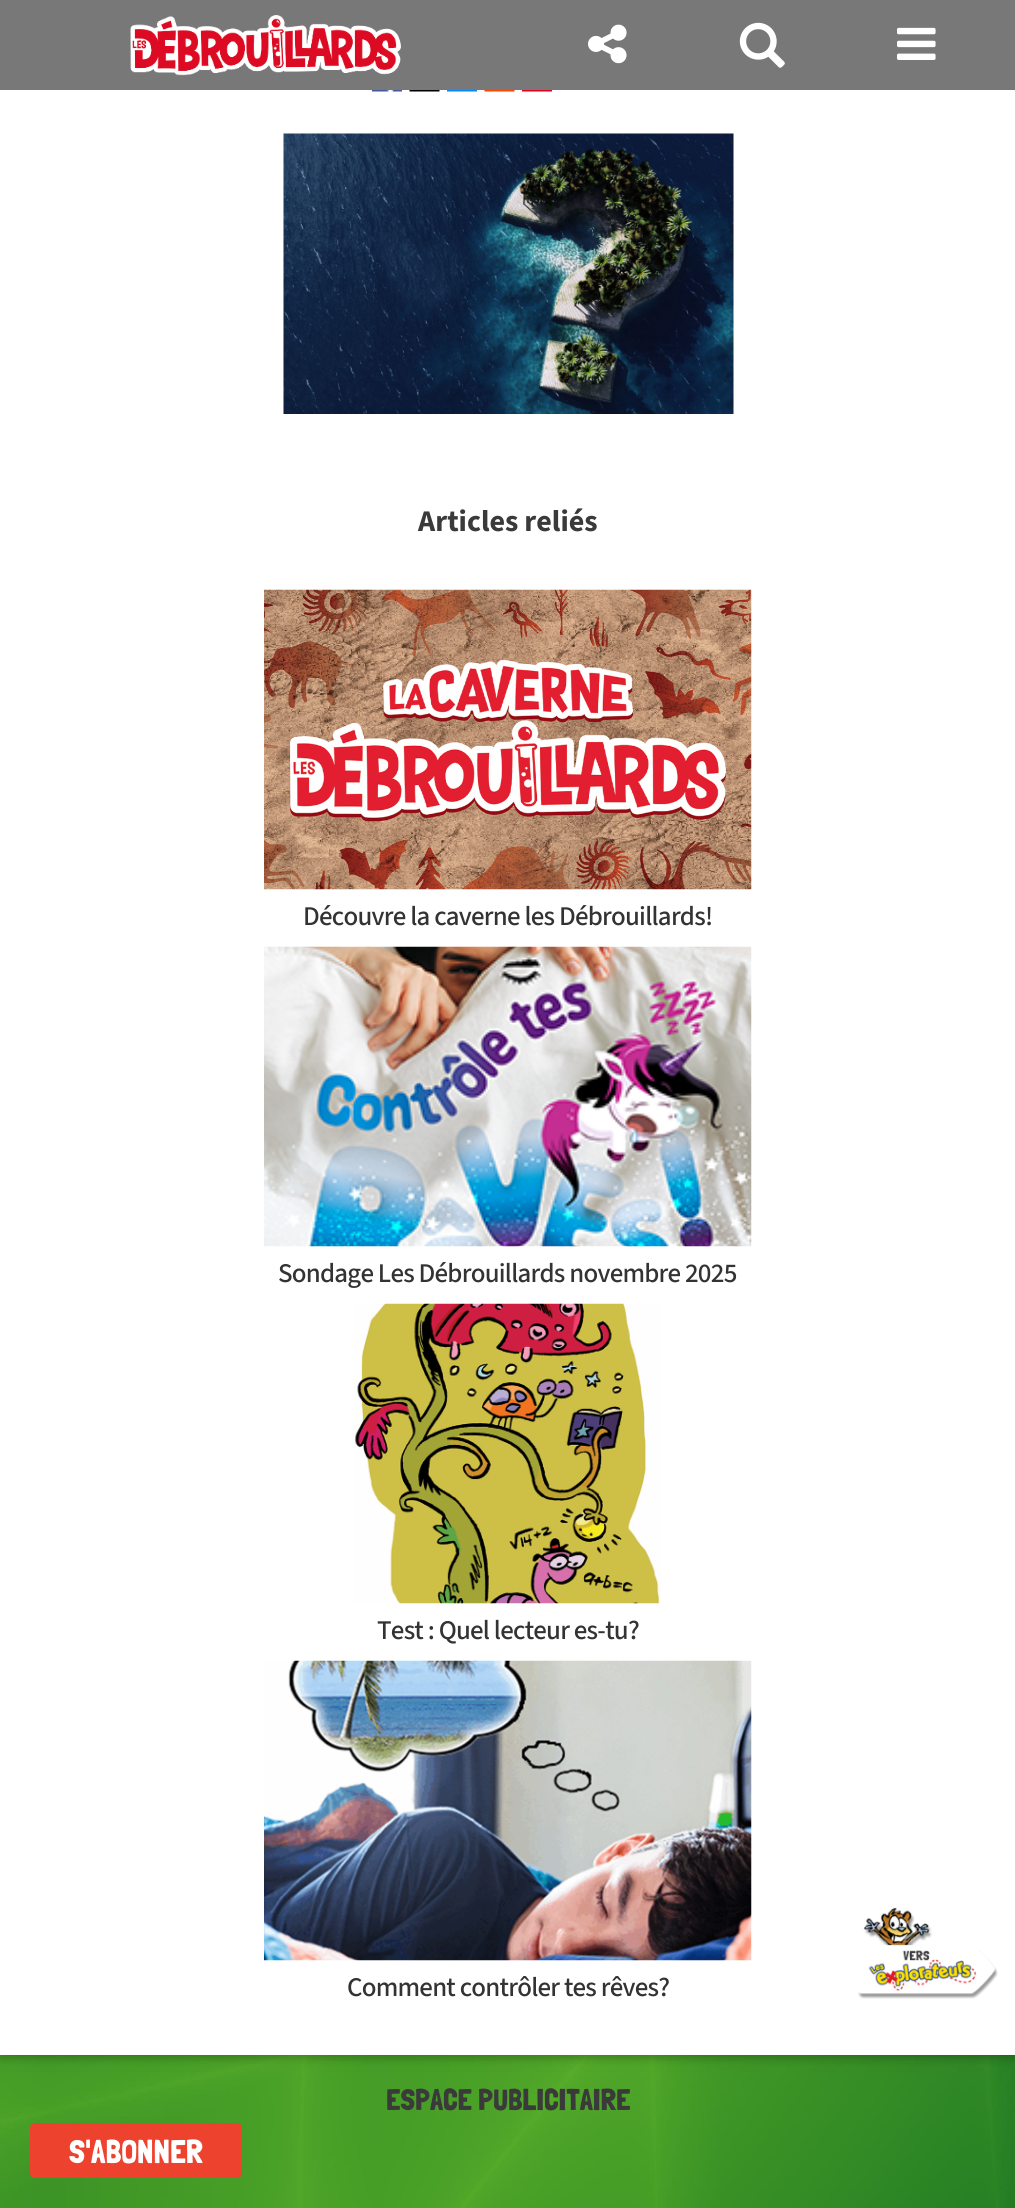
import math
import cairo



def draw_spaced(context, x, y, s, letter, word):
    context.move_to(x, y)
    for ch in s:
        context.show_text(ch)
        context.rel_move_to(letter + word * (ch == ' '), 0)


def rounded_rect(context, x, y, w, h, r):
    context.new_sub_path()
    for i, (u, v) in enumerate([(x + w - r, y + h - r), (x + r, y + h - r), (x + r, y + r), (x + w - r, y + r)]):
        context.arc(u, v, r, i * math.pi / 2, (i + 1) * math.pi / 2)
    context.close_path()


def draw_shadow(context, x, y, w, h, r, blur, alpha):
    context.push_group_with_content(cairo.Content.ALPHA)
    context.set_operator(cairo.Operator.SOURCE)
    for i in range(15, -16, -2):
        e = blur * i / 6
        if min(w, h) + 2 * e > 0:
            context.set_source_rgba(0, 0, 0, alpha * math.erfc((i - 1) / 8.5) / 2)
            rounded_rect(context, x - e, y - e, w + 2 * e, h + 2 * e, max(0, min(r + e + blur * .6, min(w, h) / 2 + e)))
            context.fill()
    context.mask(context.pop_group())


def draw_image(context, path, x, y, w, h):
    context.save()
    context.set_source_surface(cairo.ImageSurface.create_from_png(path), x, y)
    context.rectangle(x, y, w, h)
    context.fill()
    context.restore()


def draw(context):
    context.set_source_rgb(1, 1, 1)
    context.paint()
    draw_image(context, "images/1.png", 0, 2055, 1015, 153)
    context.set_source_rgb(0, 0, 0)
    draw_shadow(context, 0, -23, 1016, 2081, 0, 7.5, 0.12)
    draw_shadow(context, 0, -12, 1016, 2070, 0, 4, 0.16)
    context.set_source_rgb(120 / 255, 120 / 255, 120 / 255)
    context.rectangle(0, 0, 1015, 90)
    context.fill()
    draw_image(context, "images/2.png", 130, 15, 271, 61)
    draw_image(context, "images/3.png", 588, 24, 39, 40)
    draw_image(context, "images/4.png", 739, 22, 46, 46)
    draw_image(context, "images/5.png", 897, 27, 39, 33)
    context.set_source_rgb(1, 1, 1)
    context.rectangle(0, 90, 1015, 1965)
    context.fill()
    draw_image(context, "images/6.png", 372, 90, 30, 2)
    draw_image(context, "images/7.png", 409, 90, 31, 2)
    draw_image(context, "images/8.png", 447, 90, 30, 2)
    draw_image(context, "images/9.png", 484, 90, 31, 2)
    draw_image(context, "images/10.png", 522, 90, 30, 2)
    draw_image(context, "images/11.png", 283, 133, 451, 281)
    draw_image(context, "images/12.png", 264, 589, 488, 301)
    draw_image(context, "images/13.png", 264, 946, 488, 301)
    draw_image(context, "images/14.png", 354, 1303, 307, 301)
    draw_image(context, "images/15.png", 264, 1660, 488, 301)
    draw_image(context, "images/16.png", 858, 1907, 140, 92)
    context.set_source_rgb(237 / 255, 66 / 255, 46 / 255)
    rounded_rect(context, 30, 2123, 212, 55, 5)
    context.fill()
    context.select_font_face("Source Sans 3", cairo.FontSlant.NORMAL, cairo.FontWeight.BOLD)
    context.set_font_size(30)
    context.set_source_rgb(58 / 255, 58 / 255, 58 / 255)
    context.move_to(418, 531)
    context.show_text("Articles reliés")
    context.select_font_face("Source Sans 3 Medium")
    context.set_font_size(27)
    context.set_source_rgb(51 / 255, 51 / 255, 51 / 255)
    draw_spaced(context, 303, 925, "Découvre la caverne les Débrouillards!", -0.75, 0)
    draw_spaced(context, 278, 1282, "Sondage Les Débrouillards novembre 2025", -0.75, 0)
    draw_spaced(context, 377, 1639, "Test : Quel lecteur es-tu?", -0.75, 0)
    draw_spaced(context, 347, 1996, "Comment contrôler tes rêves?", -0.75, 0)
    context.select_font_face("Londrina Solid")
    context.set_font_size(30)
    context.set_source_rgb(58 / 255, 58 / 255, 58 / 255)
    context.move_to(386, 2110)
    context.show_text("ESPACE PUBLICITAIRE")
    context.set_font_size(33)
    context.set_source_rgb(1, 1, 1)
    context.move_to(69, 2163)
    context.show_text("S'ABONNER")


surface = cairo.ImageSurface(cairo.Format.RGB24, 1015, 2208)
context = cairo.Context(surface)
options = cairo.FontOptions()
options.set_hint_metrics(cairo.HintMetrics.OFF)
options.set_hint_style(cairo.HintStyle.NONE)
context.set_font_options(options)
context.set_miter_limit(4)
draw(context)
surface.write_to_png("out.png")
